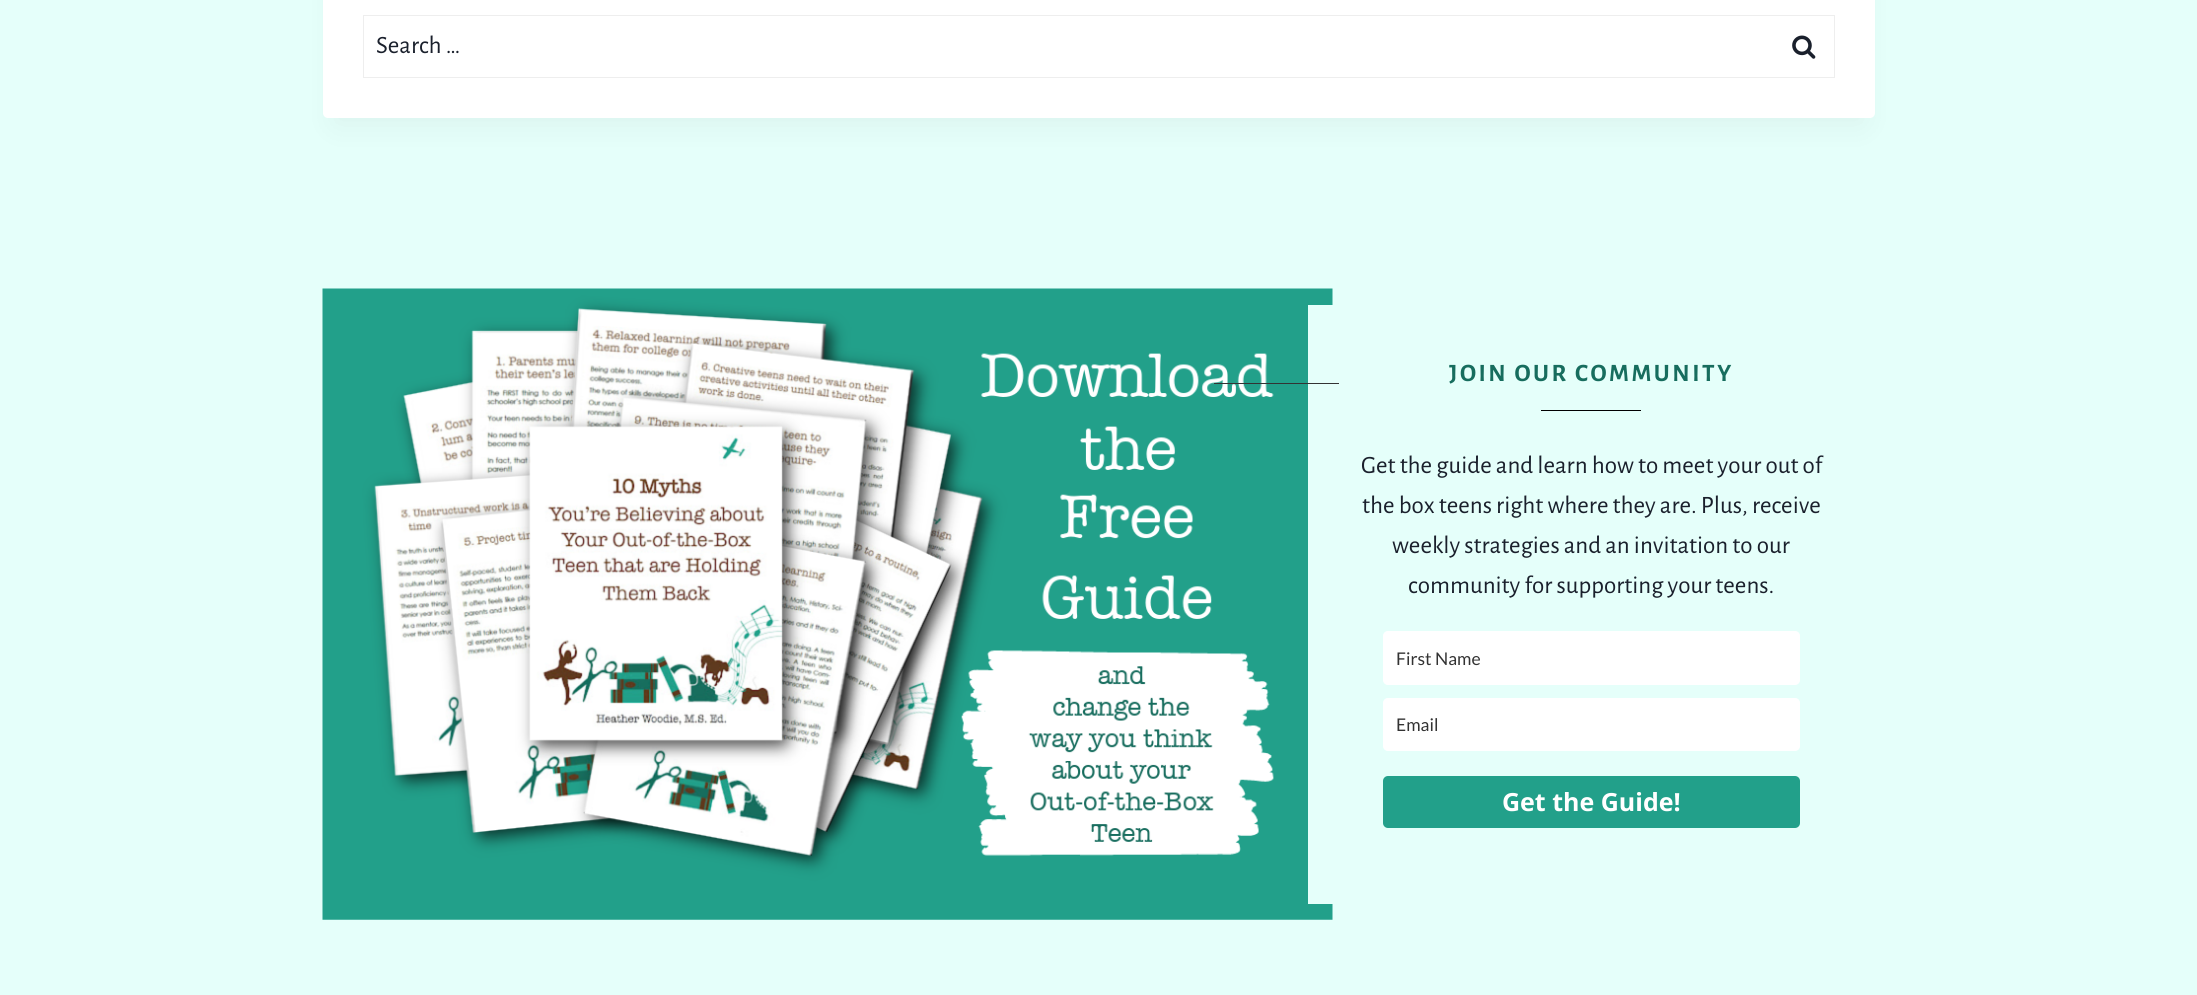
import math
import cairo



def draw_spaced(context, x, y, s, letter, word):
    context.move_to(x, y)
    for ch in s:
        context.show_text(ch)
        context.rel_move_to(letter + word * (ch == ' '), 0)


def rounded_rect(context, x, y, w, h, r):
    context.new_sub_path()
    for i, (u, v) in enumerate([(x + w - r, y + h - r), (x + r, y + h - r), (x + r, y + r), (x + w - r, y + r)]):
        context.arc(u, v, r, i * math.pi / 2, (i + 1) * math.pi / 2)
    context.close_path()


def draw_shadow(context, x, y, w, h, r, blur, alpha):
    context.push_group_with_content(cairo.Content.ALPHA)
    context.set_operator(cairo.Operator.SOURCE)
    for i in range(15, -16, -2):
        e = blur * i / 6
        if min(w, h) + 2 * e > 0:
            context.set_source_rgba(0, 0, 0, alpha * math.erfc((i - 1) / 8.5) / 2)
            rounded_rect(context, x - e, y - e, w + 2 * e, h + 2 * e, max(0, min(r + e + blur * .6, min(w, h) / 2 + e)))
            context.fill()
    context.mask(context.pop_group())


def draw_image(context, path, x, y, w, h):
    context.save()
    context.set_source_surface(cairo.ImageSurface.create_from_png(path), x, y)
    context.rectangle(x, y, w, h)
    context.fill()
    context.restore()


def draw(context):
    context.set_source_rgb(229 / 255, 1, 250 / 255)
    context.paint()
    context.set_source_rgb(0, 0, 0)
    draw_shadow(context, 335, -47, 1528, 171, 0, 15.5, 0.05)
    context.set_source_rgb(1, 1, 1)
    rounded_rect(context, 323, -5, 1552, 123, 5)
    context.fill()
    context.rectangle(363.5, 15.5, 1471, 62)
    context.set_source_rgb(238 / 255, 238 / 255, 238 / 255)
    context.set_line_width(1)
    context.stroke()
    draw_image(context, "images/1.png", 1792, 35, 24, 24)
    draw_image(context, "images/2.png", 322, 288, 1011, 632)
    context.set_source_rgb(229 / 255, 1, 250 / 255)
    context.rectangle(1308, 305, 25, 599)
    context.fill()
    context.set_source_rgb(51 / 255, 51 / 255, 51 / 255)
    context.rectangle(1214, 383, 125, 1)
    context.fill()
    context.set_source_rgb(0, 0, 0)
    context.rectangle(1541, 410, 100, 1)
    context.fill()
    context.set_source_rgb(1, 1, 1)
    rounded_rect(context, 1383.5, 631.5, 416, 53, 4.5)
    context.fill_preserve()
    context.stroke()
    rounded_rect(context, 1383.5, 698.5, 416, 52, 4.5)
    context.fill_preserve()
    context.stroke()
    context.set_source_rgb(34 / 255, 160 / 255, 138 / 255)
    rounded_rect(context, 1383, 776, 417, 52, 5)
    context.fill()
    context.select_font_face("Alegreya Sans")
    context.set_font_size(25)
    context.set_source_rgb(26 / 255, 32 / 255, 44 / 255)
    context.move_to(376, 53)
    context.show_text("Search …")
    context.select_font_face("Alegreya Sans", cairo.FontSlant.NORMAL, cairo.FontWeight.BOLD)
    context.set_source_rgb(23 / 255, 109 / 255, 94 / 255)
    draw_spaced(context, 1449, 381, "JOIN OUR COMMUNITY", 2.5, 0)
    context.select_font_face("Alegreya Sans")
    context.set_source_rgb(26 / 255, 32 / 255, 44 / 255)
    context.move_to(1361, 473)
    context.show_text("Get the guide and learn how to meet your out of")
    context.move_to(1362, 513)
    context.show_text("the box teens right where they are. Plus, receive")
    context.move_to(1392, 553)
    context.show_text("weekly strategies and an invitation to our")
    context.move_to(1408, 593)
    context.show_text("community for supporting your teens.")
    context.select_font_face("Lato")
    context.set_font_size(17.5)
    context.set_source_rgb(51 / 255, 51 / 255, 51 / 255)
    context.move_to(1396, 665)
    context.show_text("First Name")
    context.move_to(1396, 731)
    context.show_text("Email")
    context.select_font_face("Open Sans", cairo.FontSlant.NORMAL, cairo.FontWeight.BOLD)
    context.set_font_size(25)
    context.set_source_rgb(1, 1, 1)
    context.move_to(1502, 811)
    context.show_text("Get the Guide!")


surface = cairo.ImageSurface(cairo.Format.RGB24, 2197, 995)
context = cairo.Context(surface)
options = cairo.FontOptions()
options.set_hint_metrics(cairo.HintMetrics.OFF)
options.set_hint_style(cairo.HintStyle.NONE)
context.set_font_options(options)
context.set_miter_limit(4)
draw(context)
surface.write_to_png("out.png")
